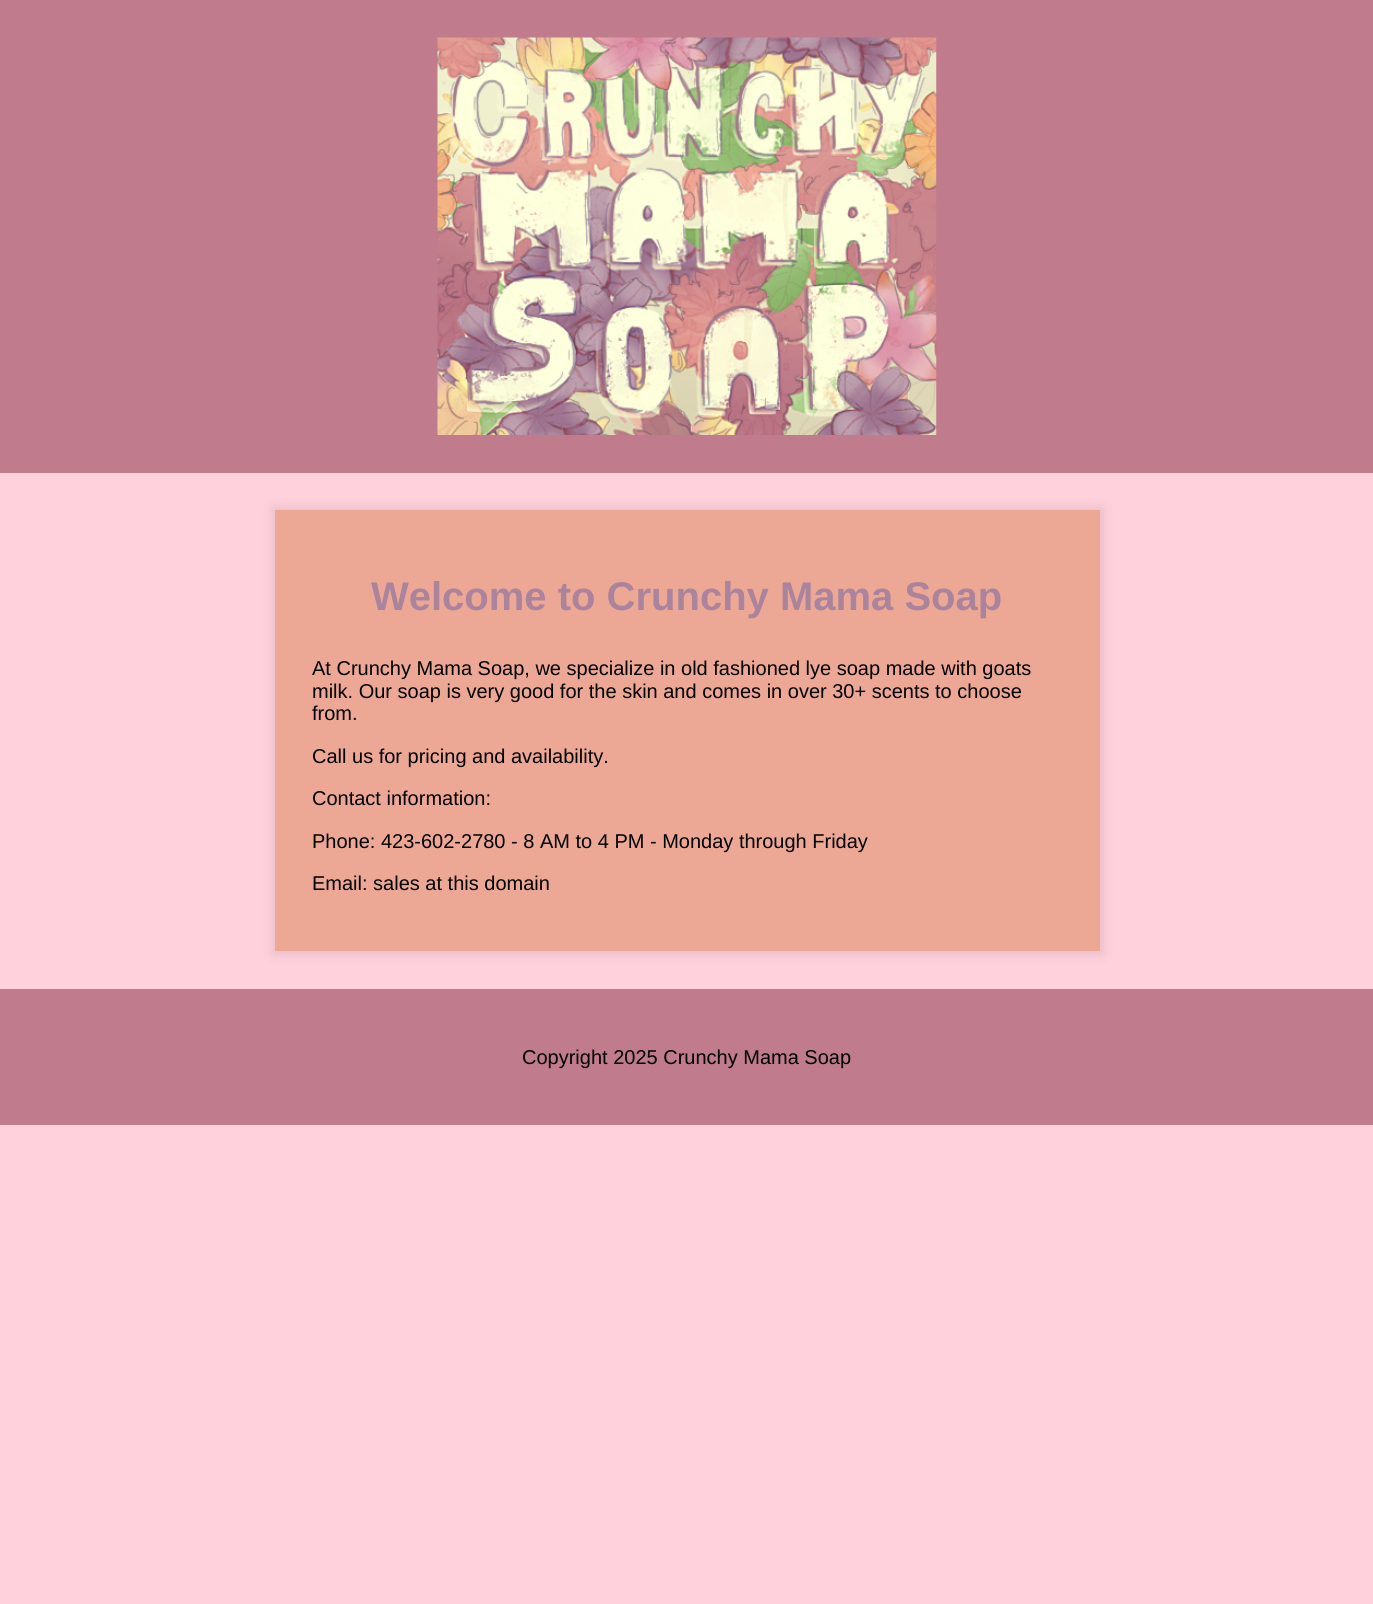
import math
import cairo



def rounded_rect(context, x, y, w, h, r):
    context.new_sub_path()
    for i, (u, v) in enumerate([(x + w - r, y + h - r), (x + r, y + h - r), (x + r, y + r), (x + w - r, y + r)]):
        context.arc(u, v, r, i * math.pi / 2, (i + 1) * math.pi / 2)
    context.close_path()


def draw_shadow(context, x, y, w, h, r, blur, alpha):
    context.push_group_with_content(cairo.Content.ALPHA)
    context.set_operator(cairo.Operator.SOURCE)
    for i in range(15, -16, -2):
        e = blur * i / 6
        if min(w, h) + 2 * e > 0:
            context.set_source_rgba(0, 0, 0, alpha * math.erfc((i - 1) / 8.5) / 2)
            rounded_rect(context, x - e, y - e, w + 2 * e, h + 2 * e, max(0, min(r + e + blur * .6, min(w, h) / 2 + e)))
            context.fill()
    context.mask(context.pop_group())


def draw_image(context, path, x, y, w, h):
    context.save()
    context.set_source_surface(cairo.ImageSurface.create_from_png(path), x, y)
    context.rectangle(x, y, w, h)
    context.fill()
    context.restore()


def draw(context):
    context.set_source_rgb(1, 209 / 255, 220 / 255)
    context.paint()
    context.set_source_rgb(192 / 255, 123 / 255, 140 / 255)
    context.rectangle(0, 0, 1373, 473)
    context.fill()
    draw_image(context, "images/1.png", 437, 37, 500, 398)
    context.set_source_rgb(0, 0, 0)
    draw_shadow(context, 273, 508, 830, 446, 0, 6, 0.1)
    context.set_source_rgb(237 / 255, 167 / 255, 149 / 255)
    context.rectangle(275, 510, 825, 441)
    context.fill()
    context.set_source_rgb(192 / 255, 123 / 255, 140 / 255)
    context.rectangle(0, 989, 1373, 136)
    context.fill()
    context.select_font_face("Liberation Sans", cairo.FontSlant.NORMAL, cairo.FontWeight.BOLD)
    context.set_font_size(40)
    context.set_source_rgb(170 / 255, 131 / 255, 156 / 255)
    context.move_to(371, 610)
    context.show_text("Welcome to Crunchy Mama Soap")
    context.select_font_face("Liberation Sans")
    context.set_font_size(20)
    context.set_source_rgb(0, 0, 0)
    context.move_to(312, 675)
    context.show_text("At Crunchy Mama Soap, we specialize in old fashioned lye soap made with goats")
    context.move_to(312, 698)
    context.show_text("milk. Our soap is very good for the skin and comes in over 30+ scents to choose")
    context.move_to(312, 720)
    context.show_text("from.")
    context.move_to(312, 763)
    context.show_text("Call us for pricing and availability.")
    context.move_to(312, 805)
    context.show_text("Contact information:")
    context.move_to(312, 848)
    context.show_text("Phone: 423-602-2780 - 8 AM to 4 PM - Monday through Friday")
    context.move_to(312, 890)
    context.show_text("Email: sales at this domain")
    context.move_to(522, 1064)
    context.show_text("Copyright 2025 Crunchy Mama Soap")


surface = cairo.ImageSurface(cairo.Format.RGB24, 1373, 1604)
context = cairo.Context(surface)
options = cairo.FontOptions()
options.set_hint_metrics(cairo.HintMetrics.OFF)
options.set_hint_style(cairo.HintStyle.NONE)
context.set_font_options(options)
context.set_miter_limit(4)
draw(context)
surface.write_to_png("out.png")
